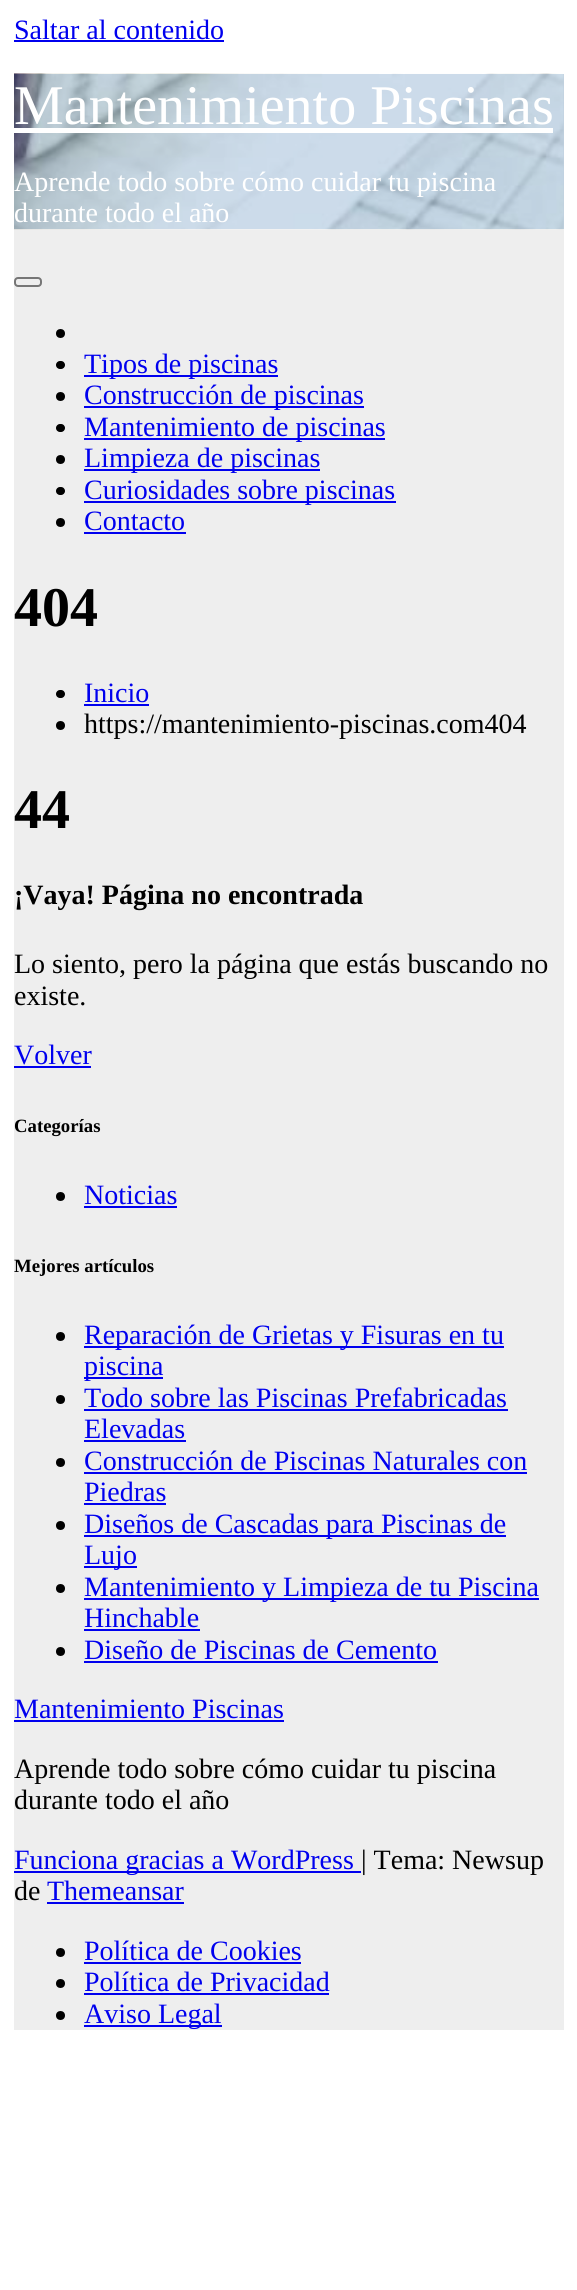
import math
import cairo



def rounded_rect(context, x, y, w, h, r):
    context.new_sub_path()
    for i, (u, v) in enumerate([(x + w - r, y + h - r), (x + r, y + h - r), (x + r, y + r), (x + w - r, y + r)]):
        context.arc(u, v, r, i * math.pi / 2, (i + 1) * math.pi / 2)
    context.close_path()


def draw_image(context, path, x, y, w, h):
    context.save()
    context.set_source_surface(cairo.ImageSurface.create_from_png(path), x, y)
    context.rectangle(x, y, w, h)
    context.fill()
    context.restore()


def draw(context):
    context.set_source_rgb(1, 1, 1)
    context.paint()
    context.set_source_rgb(0, 0, 238 / 255)
    context.rectangle(14, 40, 210, 2)
    context.fill()
    context.set_source_rgb(238 / 255, 238 / 255, 238 / 255)
    context.rectangle(14, 229, 550, 1801)
    context.fill()
    context.set_source_rgb(193 / 255, 208 / 255, 223 / 255)
    context.rectangle(563, 74, 1, 155)
    context.fill()
    draw_image(context, "images/1.png", 14, 73, 550, 157)
    context.set_source_rgb(1, 1, 1)
    context.rectangle(14, 128, 539, 5)
    context.fill()
    rounded_rect(context, 15, 278, 26, 8, 3)
    context.set_source_rgb(118 / 255, 118 / 255, 118 / 255)
    context.stroke()
    context.set_source_rgb(0, 0, 0)
    context.arc(60.5, 333.5, 4.5, 0, 2 * math.pi)
    context.fill()
    rounded_rect(context, 56, 361, 9, 8, 4)
    context.fill()
    context.set_source_rgb(0, 0, 238 / 255)
    context.rectangle(84, 375, 194, 2)
    context.fill()
    context.set_source_rgb(0, 0, 0)
    context.arc(60.5, 396.5, 4.5, 0, 2 * math.pi)
    context.fill()
    context.set_source_rgb(0, 0, 238 / 255)
    context.rectangle(84, 406, 280, 2)
    context.fill()
    context.set_source_rgb(0, 0, 0)
    rounded_rect(context, 56, 424, 9, 8, 4)
    context.fill()
    context.set_source_rgb(0, 0, 238 / 255)
    context.rectangle(84, 438, 301, 2)
    context.fill()
    context.set_source_rgb(0, 0, 0)
    context.arc(60.5, 459.5, 4.5, 0, 2 * math.pi)
    context.fill()
    context.set_source_rgb(0, 0, 238 / 255)
    context.rectangle(84, 469, 236, 2)
    context.fill()
    context.set_source_rgb(0, 0, 0)
    rounded_rect(context, 56, 487, 9, 8, 4)
    context.fill()
    context.set_source_rgb(0, 0, 238 / 255)
    context.rectangle(84, 501, 312, 2)
    context.fill()
    context.set_source_rgb(0, 0, 0)
    context.arc(60.5, 522.5, 4.5, 0, 2 * math.pi)
    context.fill()
    context.set_source_rgb(0, 0, 238 / 255)
    context.rectangle(84, 532, 102, 2)
    context.fill()
    context.set_source_rgb(0, 0, 0)
    rounded_rect(context, 56, 690, 9, 8, 4)
    context.fill()
    context.set_source_rgb(0, 0, 238 / 255)
    context.rectangle(84, 704, 65, 2)
    context.fill()
    context.set_source_rgb(0, 0, 0)
    context.arc(60.5, 725.5, 4.5, 0, 2 * math.pi)
    context.fill()
    context.set_source_rgb(0, 0, 238 / 255)
    context.rectangle(14, 1066, 77, 2)
    context.fill()
    context.set_source_rgb(0, 0, 0)
    context.arc(60.5, 1196.5, 4.5, 0, 2 * math.pi)
    context.fill()
    context.set_source_rgb(0, 0, 238 / 255)
    context.rectangle(84, 1206, 93, 2)
    context.fill()
    context.set_source_rgb(0, 0, 0)
    context.arc(60.5, 1336.5, 4.5, 0, 2 * math.pi)
    context.fill()
    context.set_source_rgb(0, 0, 238 / 255)
    context.rectangle(84, 1346, 420, 2)
    context.fill()
    context.rectangle(84, 1377, 79, 2)
    context.fill()
    context.set_source_rgb(0, 0, 0)
    context.arc(60.5, 1399.5, 4.5, 0, 2 * math.pi)
    context.fill()
    context.set_source_rgb(0, 0, 238 / 255)
    context.rectangle(84, 1409, 424, 2)
    context.fill()
    context.rectangle(84, 1440, 102, 2)
    context.fill()
    context.set_source_rgb(0, 0, 0)
    context.arc(60.5, 1462.5, 4.5, 0, 2 * math.pi)
    context.fill()
    context.set_source_rgb(0, 0, 238 / 255)
    context.rectangle(84, 1472, 443, 2)
    context.fill()
    context.rectangle(84, 1503, 82, 2)
    context.fill()
    context.set_source_rgb(0, 0, 0)
    context.arc(60.5, 1525.5, 4.5, 0, 2 * math.pi)
    context.fill()
    context.set_source_rgb(0, 0, 238 / 255)
    context.rectangle(84, 1535, 422, 2)
    context.fill()
    context.rectangle(84, 1566, 53, 2)
    context.fill()
    context.set_source_rgb(0, 0, 0)
    context.arc(60.5, 1588.5, 4.5, 0, 2 * math.pi)
    context.fill()
    context.set_source_rgb(0, 0, 238 / 255)
    context.rectangle(84, 1598, 455, 2)
    context.fill()
    context.rectangle(84, 1629, 116, 2)
    context.fill()
    context.set_source_rgb(0, 0, 0)
    context.arc(60.5, 1651.5, 4.5, 0, 2 * math.pi)
    context.fill()
    context.set_source_rgb(0, 0, 238 / 255)
    context.rectangle(84, 1661, 354, 2)
    context.fill()
    context.rectangle(14, 1720, 270, 2)
    context.fill()
    context.rectangle(14, 1871, 347, 2)
    context.fill()
    context.rectangle(47, 1902, 137, 2)
    context.fill()
    context.set_source_rgb(0, 0, 0)
    context.arc(60.5, 1952.5, 4.5, 0, 2 * math.pi)
    context.fill()
    context.set_source_rgb(0, 0, 238 / 255)
    context.rectangle(84, 1962, 217, 2)
    context.fill()
    context.set_source_rgb(0, 0, 0)
    context.arc(60.5, 1983.5, 4.5, 0, 2 * math.pi)
    context.fill()
    context.set_source_rgb(0, 0, 238 / 255)
    context.rectangle(84, 1993, 245, 2)
    context.fill()
    context.set_source_rgb(0, 0, 0)
    context.arc(60.5, 2015.5, 4.5, 0, 2 * math.pi)
    context.fill()
    context.set_source_rgb(0, 0, 238 / 255)
    context.rectangle(84, 2025, 138, 2)
    context.fill()
    context.select_font_face("Liberation Serif")
    context.set_font_size(28)
    context.move_to(14, 39)
    context.show_text("Saltar al contenido")
    context.set_font_size(56)
    context.set_source_rgb(1, 1, 1)
    context.move_to(14, 124)
    context.show_text("Mantenimiento Piscinas")
    context.set_font_size(28)
    context.move_to(14, 191)
    context.show_text("Aprende todo sobre cómo cuidar tu piscina")
    context.move_to(14, 222)
    context.show_text("durante todo el año")
    context.set_source_rgb(0, 0, 238 / 255)
    context.move_to(84, 373)
    context.show_text("Tipos de piscinas")
    context.move_to(84, 404)
    context.show_text("Construcción de piscinas")
    context.move_to(84, 436)
    context.show_text("Mantenimiento de piscinas")
    context.move_to(84, 467)
    context.show_text("Limpieza de piscinas")
    context.move_to(84, 499)
    context.show_text("Curiosidades sobre piscinas")
    context.move_to(84, 530)
    context.show_text("Contacto")
    context.select_font_face("Liberation Serif", cairo.FontSlant.NORMAL, cairo.FontWeight.BOLD)
    context.set_font_size(56)
    context.set_source_rgb(0, 0, 0)
    context.move_to(14, 626)
    context.show_text("404")
    context.select_font_face("Liberation Serif")
    context.set_font_size(28)
    context.set_source_rgb(0, 0, 238 / 255)
    context.move_to(84, 702)
    context.show_text("Inicio")
    context.set_source_rgb(0, 0, 0)
    context.move_to(84, 733)
    context.show_text("https://mantenimiento-piscinas.com404")
    context.select_font_face("Liberation Serif", cairo.FontSlant.NORMAL, cairo.FontWeight.BOLD)
    context.set_font_size(56)
    context.move_to(14, 828)
    context.show_text("44")
    context.set_font_size(28)
    context.move_to(14, 904)
    context.show_text("¡Vaya! Página no encontrada")
    context.select_font_face("Liberation Serif")
    context.move_to(14, 973)
    context.show_text("Lo siento, pero la página que estás buscando no")
    context.move_to(14, 1005)
    context.show_text("existe.")
    context.set_source_rgb(0, 0, 238 / 255)
    context.move_to(14, 1064)
    context.show_text("Volver")
    context.select_font_face("Liberation Serif", cairo.FontSlant.NORMAL, cairo.FontWeight.BOLD)
    context.set_font_size(18.75)
    context.set_source_rgb(0, 0, 0)
    context.move_to(14, 1132)
    context.show_text("Categorías")
    context.select_font_face("Liberation Serif")
    context.set_font_size(28)
    context.set_source_rgb(0, 0, 238 / 255)
    context.move_to(84, 1204)
    context.show_text("Noticias")
    context.select_font_face("Liberation Serif", cairo.FontSlant.NORMAL, cairo.FontWeight.BOLD)
    context.set_font_size(18.75)
    context.set_source_rgb(0, 0, 0)
    context.move_to(14, 1272)
    context.show_text("Mejores artículos")
    context.select_font_face("Liberation Serif")
    context.set_font_size(28)
    context.set_source_rgb(0, 0, 238 / 255)
    context.move_to(84, 1344)
    context.show_text("Reparación de Grietas y Fisuras en tu")
    context.move_to(84, 1375)
    context.show_text("piscina")
    context.move_to(84, 1407)
    context.show_text("Todo sobre las Piscinas Prefabricadas")
    context.move_to(84, 1438)
    context.show_text("Elevadas")
    context.move_to(84, 1470)
    context.show_text("Construcción de Piscinas Naturales con")
    context.move_to(84, 1501)
    context.show_text("Piedras")
    context.move_to(84, 1533)
    context.show_text("Diseños de Cascadas para Piscinas de")
    context.move_to(84, 1564)
    context.show_text("Lujo")
    context.move_to(84, 1596)
    context.show_text("Mantenimiento y Limpieza de tu Piscina")
    context.move_to(84, 1627)
    context.show_text("Hinchable")
    context.move_to(84, 1659)
    context.show_text("Diseño de Piscinas de Cemento")
    context.move_to(14, 1718)
    context.show_text("Mantenimiento Piscinas")
    context.set_source_rgb(0, 0, 0)
    context.move_to(14, 1778)
    context.show_text("Aprende todo sobre cómo cuidar tu piscina")
    context.move_to(14, 1809)
    context.show_text("durante todo el año")
    context.set_source_rgb(0, 0, 238 / 255)
    context.move_to(14, 1869)
    context.show_text("Funciona gracias a WordPress")
    context.set_source_rgb(0, 0, 0)
    context.move_to(361, 1869)
    context.show_text("| Tema: Newsup")
    context.move_to(14, 1900)
    context.show_text("de")
    context.set_source_rgb(0, 0, 238 / 255)
    context.move_to(47, 1900)
    context.show_text("Themeansar")
    context.move_to(84, 1960)
    context.show_text("Política de Cookies")
    context.move_to(84, 1991)
    context.show_text("Política de Privacidad")
    context.move_to(84, 2023)
    context.show_text("Aviso Legal")


surface = cairo.ImageSurface(cairo.Format.RGB24, 577, 2290)
context = cairo.Context(surface)
options = cairo.FontOptions()
options.set_hint_metrics(cairo.HintMetrics.OFF)
options.set_hint_style(cairo.HintStyle.NONE)
context.set_font_options(options)
context.set_miter_limit(4)
draw(context)
surface.write_to_png("out.png")
